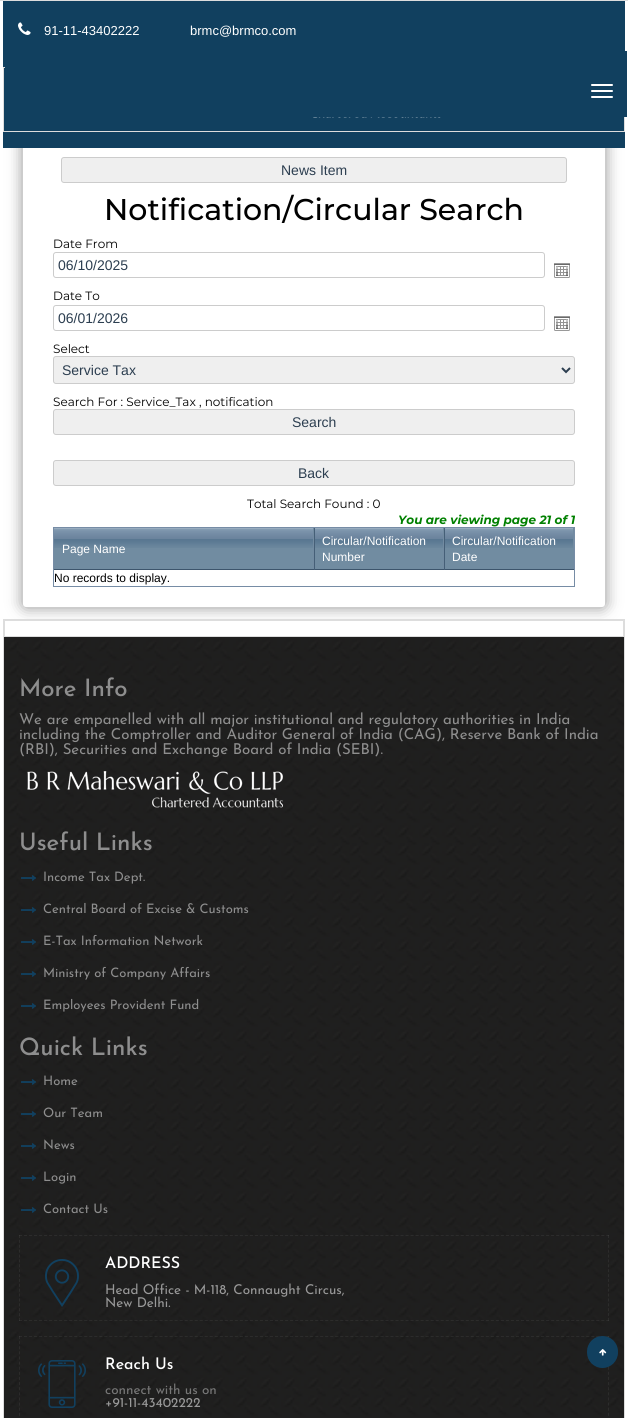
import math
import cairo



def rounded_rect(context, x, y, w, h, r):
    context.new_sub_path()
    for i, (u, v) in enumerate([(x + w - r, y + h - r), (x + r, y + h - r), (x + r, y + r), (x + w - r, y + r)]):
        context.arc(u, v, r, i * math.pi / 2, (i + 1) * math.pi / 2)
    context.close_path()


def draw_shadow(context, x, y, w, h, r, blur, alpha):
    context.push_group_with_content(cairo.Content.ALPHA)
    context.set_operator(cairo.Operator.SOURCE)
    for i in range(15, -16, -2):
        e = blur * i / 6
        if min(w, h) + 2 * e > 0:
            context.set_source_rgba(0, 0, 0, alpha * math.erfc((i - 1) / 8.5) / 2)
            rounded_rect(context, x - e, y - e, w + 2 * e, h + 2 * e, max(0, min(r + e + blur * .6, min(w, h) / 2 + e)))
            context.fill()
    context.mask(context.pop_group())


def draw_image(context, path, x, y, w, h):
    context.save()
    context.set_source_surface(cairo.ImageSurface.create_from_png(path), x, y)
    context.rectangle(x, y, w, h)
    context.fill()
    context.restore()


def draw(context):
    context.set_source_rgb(1, 1, 1)
    context.paint()
    context.rectangle(-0.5, 0.5, 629, 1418)
    context.set_source_rgb(221 / 255, 221 / 255, 221 / 255)
    context.set_line_width(1)
    context.stroke()
    context.rectangle(3, 619, 622, 1)
    context.fill()
    context.rectangle(624, 619, 1, 799)
    context.fill()
    context.rectangle(3, 619, 1, 799)
    context.fill()
    context.rectangle(4, 620, 620, 1)
    context.fill()
    context.rectangle(623, 620, 1, 17)
    context.fill()
    context.rectangle(4, 636, 620, 1)
    context.fill()
    context.rectangle(4, 620, 1, 17)
    context.fill()
    context.save()
    context.rectangle(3, 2, 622, 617)
    context.clip()
    context.set_source_rgb(0, 0, 0)
    draw_shadow(context, 22, 13, 584, 595, 4, 7.5, 0.4)
    context.restore()
    context.set_source_rgb(1, 1, 1)
    rounded_rect(context, 23, 14, 582, 593, 3)
    context.fill()
    context.set_source_rgb(17 / 255, 64 / 255, 95 / 255)
    context.rectangle(3, 1, 622, 147)
    context.fill()
    draw_image(context, "images/1.png", 18, 22, 13, 13)
    context.rectangle(625, 51, 2, 66)
    context.fill()
    context.set_source_rgb(1, 1, 1)
    rounded_rect(context, 591, 84, 22, 2, 1)
    context.fill()
    rounded_rect(context, 591, 90, 22, 2, 1)
    context.fill()
    rounded_rect(context, 591, 96, 22, 2, 1)
    context.fill()
    context.set_source_rgb(221 / 255, 221 / 255, 221 / 255)
    context.rectangle(3, 67, 2, 1)
    context.fill()
    context.rectangle(624, 117, 1, 15)
    context.fill()
    context.rectangle(3, 131, 622, 1)
    context.fill()
    context.rectangle(3, 67, 1, 65)
    context.fill()
    draw_image(context, "images/2.png", 313, 117, 128, 1)
    context.set_source_rgb(239 / 255, 239 / 255, 239 / 255)
    rounded_rect(context, 61.5, 157.5, 505, 25, 2.5)
    context.fill_preserve()
    context.set_source_rgb(204 / 255, 204 / 255, 204 / 255)
    context.stroke()
    rounded_rect(context, 53.5, 252.5, 491, 25, 2.5)
    context.stroke()
    draw_image(context, "images/3.png", 554, 263, 16, 15)
    rounded_rect(context, 53.5, 305.5, 491, 25, 2.5)
    context.stroke()
    draw_image(context, "images/3.png", 554, 316, 16, 15)
    context.set_source_rgb(239 / 255, 239 / 255, 239 / 255)
    rounded_rect(context, 53.5, 356.5, 521, 27, 2.5)
    context.fill_preserve()
    context.set_source_rgb(204 / 255, 204 / 255, 204 / 255)
    context.stroke()
    context.new_path()
    context.move_to(562, 368)
    context.line_to(566, 372)
    context.line_to(570, 368)
    context.set_source_rgb(44 / 255, 62 / 255, 80 / 255)
    context.set_line_width(2)
    context.stroke()
    context.set_source_rgb(239 / 255, 239 / 255, 239 / 255)
    rounded_rect(context, 53.5, 409.5, 521, 25, 2.5)
    context.fill_preserve()
    context.set_source_rgb(204 / 255, 204 / 255, 204 / 255)
    context.set_line_width(1)
    context.stroke()
    context.set_source_rgb(239 / 255, 239 / 255, 239 / 255)
    rounded_rect(context, 53.5, 460.5, 521, 25, 2.5)
    context.fill_preserve()
    context.set_source_rgb(204 / 255, 204 / 255, 204 / 255)
    context.stroke()
    context.rectangle(53.5, 527.5, 521, 59)
    context.set_source_rgb(118 / 255, 140 / 255, 165 / 255)
    context.stroke()
    context.set_source_rgb(113 / 255, 140 / 255, 161 / 255)
    context.rectangle(54, 548, 259, 21)
    context.fill()
    draw_image(context, "images/4.png", 54, 528, 259, 20)
    context.set_source_rgb(114 / 255, 139 / 255, 161 / 255)
    context.rectangle(313, 528, 1, 42)
    context.fill()
    context.set_source_rgb(61 / 255, 85 / 255, 108 / 255)
    context.rectangle(54, 569, 260, 1)
    context.fill()
    context.set_source_rgb(113 / 255, 140 / 255, 161 / 255)
    context.rectangle(315, 548, 128, 21)
    context.fill()
    draw_image(context, "images/5.png", 315, 528, 128, 20)
    context.set_source_rgb(114 / 255, 139 / 255, 161 / 255)
    context.rectangle(443, 528, 1, 42)
    context.fill()
    context.set_source_rgb(61 / 255, 85 / 255, 108 / 255)
    context.rectangle(314, 569, 130, 1)
    context.fill()
    context.set_source_rgb(69 / 255, 95 / 255, 119 / 255)
    context.rectangle(314, 528, 1, 42)
    context.fill()
    context.set_source_rgb(113 / 255, 140 / 255, 161 / 255)
    context.rectangle(445, 548, 128, 21)
    context.fill()
    draw_image(context, "images/5.png", 445, 528, 128, 20)
    context.set_source_rgb(114 / 255, 139 / 255, 161 / 255)
    context.rectangle(573, 528, 1, 42)
    context.fill()
    context.set_source_rgb(61 / 255, 85 / 255, 108 / 255)
    context.rectangle(444, 569, 130, 1)
    context.fill()
    context.set_source_rgb(69 / 255, 95 / 255, 119 / 255)
    context.rectangle(444, 528, 1, 42)
    context.fill()
    draw_image(context, "images/6.png", 4, 637, 620, 781)
    draw_image(context, "images/7.png", 27, 771, 256, 37)
    draw_image(context, "images/8.png", 21, 875, 15, 6)
    draw_image(context, "images/9.png", 21, 907, 15, 6)
    draw_image(context, "images/10.png", 21, 939, 15, 6)
    draw_image(context, "images/11.png", 21, 971, 15, 6)
    draw_image(context, "images/12.png", 21, 1003, 15, 6)
    draw_image(context, "images/13.png", 21, 1079, 15, 6)
    draw_image(context, "images/14.png", 21, 1111, 15, 6)
    draw_image(context, "images/15.png", 21, 1143, 15, 6)
    draw_image(context, "images/16.png", 21, 1175, 15, 6)
    draw_image(context, "images/17.png", 21, 1207, 15, 6)
    context.new_path()
    context.move_to(19, 1235.5)
    context.line_to(609, 1235.5)
    context.set_source_rgb(44 / 255, 44 / 255, 44 / 255)
    context.set_dash([3, 2.02])
    context.stroke()
    context.new_path()
    context.move_to(608.5, 1235)
    context.line_to(608.5, 1321)
    context.set_source_rgba(1, 1, 1, 0.06)
    context.set_dash([3, 1.88])
    context.stroke()
    context.new_path()
    context.move_to(19, 1320.5)
    context.line_to(609, 1320.5)
    context.set_dash([3, 2.02])
    context.stroke()
    context.new_path()
    context.move_to(19.5, 1235)
    context.line_to(19.5, 1321)
    context.set_dash([3, 1.88])
    context.stroke()
    draw_image(context, "images/18.png", 45, 1259, 34, 48)
    context.new_path()
    context.move_to(19, 1336.5)
    context.line_to(609, 1336.5)
    context.set_dash([3, 2.02])
    context.stroke()
    context.new_path()
    context.move_to(608.5, 1336)
    context.line_to(608.5, 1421)
    context.set_dash([3, 2.12])
    context.stroke()
    context.new_path()
    context.move_to(19.5, 1336)
    context.line_to(19.5, 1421)
    context.stroke()
    draw_image(context, "images/19.png", 38, 1360, 48, 48)
    context.set_source_rgb(17 / 255, 64 / 255, 95 / 255)
    rounded_rect(context, 588, 1337, 29, 30, 14.5)
    context.fill_preserve()
    context.set_line_width(2)
    context.set_dash([])
    context.stroke()
    draw_image(context, "images/20.png", 599, 1349, 8, 7)
    context.select_font_face("Liberation Sans")
    context.set_font_size(13)
    context.set_source_rgb(1, 1, 1)
    context.move_to(44, 35)
    context.show_text("91-11-43402222")
    context.move_to(190, 35)
    context.show_text("brmc@brmco.com")
    context.set_font_size(14)
    context.set_source_rgb(44 / 255, 62 / 255, 80 / 255)
    context.move_to(281, 175)
    context.show_text("News Item")
    context.select_font_face("Montserrat Medium")
    context.set_font_size(30)
    context.set_source_rgb(0, 0, 0)
    context.move_to(104, 220)
    context.show_text("Notification/Circular Search")
    context.select_font_face("Montserrat")
    context.set_font_size(12)
    context.move_to(53, 248)
    context.show_text("Date From")
    context.select_font_face("Liberation Sans")
    context.set_font_size(14)
    context.set_source_rgb(44 / 255, 62 / 255, 80 / 255)
    context.move_to(58, 270)
    context.show_text("06/10/2025")
    context.select_font_face("Montserrat")
    context.set_font_size(12)
    context.set_source_rgb(0, 0, 0)
    context.move_to(53, 300)
    context.show_text("Date To")
    context.select_font_face("Liberation Sans")
    context.set_font_size(14)
    context.set_source_rgb(44 / 255, 62 / 255, 80 / 255)
    context.move_to(58, 323)
    context.show_text("06/01/2026")
    context.select_font_face("Montserrat")
    context.set_font_size(12)
    context.set_source_rgb(0, 0, 0)
    context.move_to(53, 353)
    context.show_text("Select")
    context.select_font_face("Liberation Sans")
    context.set_font_size(14)
    context.set_source_rgb(44 / 255, 62 / 255, 80 / 255)
    context.move_to(62, 375)
    context.show_text("Service Tax")
    context.select_font_face("Montserrat")
    context.set_font_size(12)
    context.set_source_rgb(0, 0, 0)
    context.move_to(53, 406)
    context.show_text("Search For : Service_Tax , notification")
    context.select_font_face("Liberation Sans")
    context.set_font_size(14)
    context.set_source_rgb(44 / 255, 62 / 255, 80 / 255)
    context.move_to(292, 427)
    context.show_text("Search")
    context.move_to(298, 478)
    context.show_text("Back")
    context.select_font_face("Montserrat")
    context.set_font_size(12)
    context.set_source_rgb(0, 0, 0)
    context.move_to(247, 508)
    context.show_text("Total Search Found : 0")
    context.select_font_face("Montserrat", cairo.FontSlant.ITALIC, cairo.FontWeight.BOLD)
    context.set_source_rgb(0, 128 / 255, 0)
    context.move_to(398, 524)
    context.show_text("You are viewing page 21 of 1")
    context.select_font_face("Liberation Sans")
    context.set_source_rgb(1, 1, 1)
    context.move_to(62, 553)
    context.show_text("Page Name")
    context.move_to(322, 545)
    context.show_text("Circular/Notification")
    context.move_to(322, 561)
    context.show_text("Number")
    context.move_to(452, 545)
    context.show_text("Circular/Notification")
    context.move_to(452, 561)
    context.show_text("Date")
    context.set_source_rgb(0, 0, 0)
    context.move_to(54, 582)
    context.show_text("No records to display.")
    context.select_font_face("Josefin Sans Medium")
    context.set_font_size(24)
    context.set_source_rgb(142 / 255, 142 / 255, 142 / 255)
    context.move_to(19, 696)
    context.show_text("More Info")
    context.select_font_face("Josefin Sans")
    context.set_font_size(15)
    context.move_to(19, 724)
    context.show_text("We are empanelled with all major institutional and regulatory authorities in India")
    context.move_to(19, 739)
    context.show_text("including the Comptroller and Auditor General of India (CAG), Reserve Bank of India")
    context.move_to(19, 754)
    context.show_text("(RBI), Securities and Exchange Board of India (SEBI).")
    context.select_font_face("Josefin Sans Medium")
    context.set_font_size(24)
    context.move_to(19, 850)
    context.show_text("Useful Links")
    context.select_font_face("Josefin Sans")
    context.set_font_size(13)
    context.move_to(43, 881)
    context.show_text("Income Tax Dept.")
    context.move_to(43, 913)
    context.show_text("Central Board of Excise & Customs")
    context.move_to(43, 945)
    context.show_text("E-Tax Information Network")
    context.move_to(43, 977)
    context.show_text("Ministry of Company Affairs")
    context.move_to(43, 1009)
    context.show_text("Employees Provident Fund")
    context.select_font_face("Josefin Sans Medium")
    context.set_font_size(24)
    context.move_to(19, 1055)
    context.show_text("Quick Links")
    context.select_font_face("Josefin Sans")
    context.set_font_size(13)
    context.move_to(43, 1085)
    context.show_text("Home")
    context.move_to(43, 1117)
    context.show_text("Our Team")
    context.move_to(43, 1149)
    context.show_text("News")
    context.move_to(43, 1181)
    context.show_text("Login")
    context.move_to(43, 1213)
    context.show_text("Contact Us")
    context.select_font_face("Josefin Sans Medium")
    context.set_font_size(16)
    context.set_source_rgb(1, 1, 1)
    context.move_to(105, 1268)
    context.show_text("ADDRESS")
    context.select_font_face("Josefin Sans")
    context.set_font_size(13.5)
    context.set_source_rgb(153 / 255, 153 / 255, 153 / 255)
    context.move_to(105, 1294)
    context.show_text("Head Office - M-118, Connaught Circus,")
    context.move_to(105, 1307)
    context.show_text("New Delhi.")
    context.select_font_face("Josefin Sans Medium")
    context.set_font_size(16)
    context.set_source_rgb(1, 1, 1)
    context.move_to(105, 1369)
    context.show_text("Reach Us")
    context.select_font_face("Josefin Sans")
    context.set_font_size(13.5)
    context.set_source_rgb(119 / 255, 119 / 255, 119 / 255)
    context.move_to(105, 1394)
    context.show_text("connect with us on")
    context.set_source_rgb(153 / 255, 153 / 255, 153 / 255)
    context.move_to(105, 1407)
    context.show_text("+91-11-43402222")


surface = cairo.ImageSurface(cairo.Format.RGB24, 628, 1418)
context = cairo.Context(surface)
options = cairo.FontOptions()
options.set_hint_metrics(cairo.HintMetrics.OFF)
options.set_hint_style(cairo.HintStyle.NONE)
context.set_font_options(options)
context.set_miter_limit(4)
draw(context)
surface.write_to_png("out.png")
